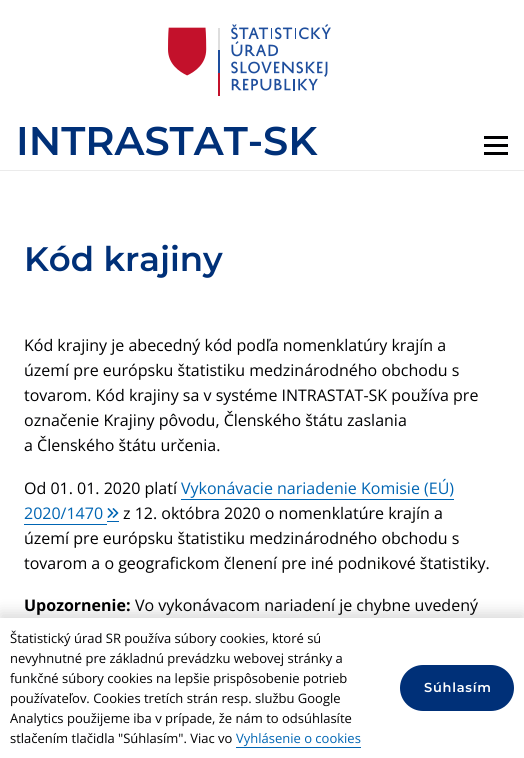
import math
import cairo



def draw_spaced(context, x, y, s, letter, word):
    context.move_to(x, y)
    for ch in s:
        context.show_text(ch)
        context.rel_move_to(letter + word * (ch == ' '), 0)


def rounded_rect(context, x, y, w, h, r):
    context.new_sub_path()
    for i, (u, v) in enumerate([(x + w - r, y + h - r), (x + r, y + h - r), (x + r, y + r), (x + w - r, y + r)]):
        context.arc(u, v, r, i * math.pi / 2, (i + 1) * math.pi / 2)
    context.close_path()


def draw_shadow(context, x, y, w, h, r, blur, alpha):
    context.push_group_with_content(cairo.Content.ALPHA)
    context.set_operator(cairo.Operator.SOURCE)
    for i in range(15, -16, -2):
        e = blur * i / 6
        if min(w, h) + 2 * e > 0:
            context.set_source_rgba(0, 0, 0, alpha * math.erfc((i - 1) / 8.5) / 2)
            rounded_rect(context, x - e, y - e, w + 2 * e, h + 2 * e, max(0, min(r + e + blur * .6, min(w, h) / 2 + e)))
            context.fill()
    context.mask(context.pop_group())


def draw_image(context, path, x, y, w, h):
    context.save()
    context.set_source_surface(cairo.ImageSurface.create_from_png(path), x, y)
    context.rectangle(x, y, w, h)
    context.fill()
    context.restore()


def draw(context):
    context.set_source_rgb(1, 1, 1)
    context.paint()
    draw_image(context, "images/1.png", 168, 24, 163, 72)
    context.set_source_rgb(235 / 255, 235 / 255, 235 / 255)
    context.rectangle(0, 170, 524, 1)
    context.fill()
    context.set_source_rgb(0, 0, 1 / 255)
    context.rectangle(484, 144, 24, 3)
    context.fill()
    context.rectangle(484, 136, 24, 3)
    context.fill()
    context.rectangle(484, 152, 24, 3)
    context.fill()
    context.set_source_rgb(0, 101 / 255, 179 / 255)
    context.rectangle(181, 499, 273, 1)
    context.fill()
    context.rectangle(24, 524, 83, 1)
    context.fill()
    context.rectangle(107, 521, 12, 1)
    context.fill()
    draw_image(context, "images/2.png", 107, 508, 12, 10)
    context.set_source_rgb(0, 0, 0)
    draw_shadow(context, 0, 613, 524, 140, 0, 7.5, 0.15)
    context.set_source_rgb(1, 1, 1)
    context.rectangle(0, 618, 524, 140)
    context.fill()
    context.set_source_rgb(0, 101 / 255, 179 / 255)
    context.rectangle(236, 747, 125, 1)
    context.fill()
    context.set_source_rgb(0, 48 / 255, 120 / 255)
    rounded_rect(context, 400, 665, 114, 46, 23)
    context.fill()
    context.select_font_face("Montserrat SemiBold")
    context.set_font_size(40)
    context.move_to(16, 155)
    context.show_text("INTRASTAT-SK")
    context.set_font_size(34)
    context.move_to(24, 271)
    context.show_text("Kód krajiny")
    context.select_font_face("Open Sans")
    context.set_font_size(16)
    context.set_source_rgb(0, 0, 1 / 255)
    context.move_to(24, 351)
    context.show_text("Kód krajiny je abecedný kód podľa nomenklatúry krajín a")
    context.move_to(24, 376)
    context.show_text("území pre európsku štatistiku medzinárodného obchodu s")
    context.move_to(24, 401)
    context.show_text("tovarom. Kód krajiny sa v systéme INTRASTAT-SK používa pre")
    context.move_to(24, 426)
    context.show_text("označenie Krajiny pôvodu, Členského štátu zaslania")
    context.move_to(24, 451)
    context.show_text("a Členského štátu určenia.")
    context.set_source_rgb(0, 101 / 255, 179 / 255)
    context.move_to(181, 494)
    context.show_text("Vykonávacie nariadenie Komisie (EÚ)")
    context.move_to(24, 519)
    context.show_text("2020/1470")
    context.set_source_rgb(0, 0, 1 / 255)
    context.move_to(24, 494)
    context.show_text("Od 01. 01. 2020 platí")
    context.move_to(123, 519)
    context.show_text("z 12. októbra 2020 o nomenklatúre krajín a")
    context.move_to(24, 544)
    context.show_text("území pre európsku štatistiku medzinárodného obchodu s")
    context.move_to(24, 569)
    context.show_text("tovarom a o geografickom členení pre iné podnikové štatistiky.")
    context.select_font_face("Open Sans", cairo.FontSlant.NORMAL, cairo.FontWeight.BOLD)
    context.move_to(24, 611)
    context.show_text("Upozornenie:")
    context.select_font_face("Open Sans")
    context.move_to(135, 611)
    context.show_text("Vo vykonávacom nariadení je chybne uvedený")
    context.set_font_size(13)
    context.move_to(10, 643)
    context.show_text("Štatistický úrad SR používa súbory cookies, ktoré sú")
    context.move_to(10, 663)
    context.show_text("nevyhnutné pre základnú prevádzku webovej stránky a")
    context.move_to(10, 683)
    context.show_text("funkčné súbory cookies na lepšie prispôsobenie potrieb")
    context.move_to(10, 703)
    context.show_text("používateľov. Cookies tretích strán resp. službu Google")
    context.move_to(10, 723)
    context.show_text("Analytics použijeme iba v prípade, že nám to odsúhlasíte")
    context.move_to(10, 743)
    context.show_text("stlačením tlačidla \"Súhlasím\". Viac vo")
    context.set_source_rgb(0, 101 / 255, 179 / 255)
    context.move_to(236, 743)
    context.show_text("Vyhlásenie o cookies")
    context.select_font_face("Montserrat SemiBold")
    context.set_source_rgb(1, 1, 1)
    draw_spaced(context, 424, 692, "Súhlasím", 0.75, 0)


surface = cairo.ImageSurface(cairo.Format.RGB24, 524, 758)
context = cairo.Context(surface)
options = cairo.FontOptions()
options.set_hint_metrics(cairo.HintMetrics.OFF)
options.set_hint_style(cairo.HintStyle.NONE)
context.set_font_options(options)
context.set_miter_limit(4)
draw(context)
surface.write_to_png("out.png")
